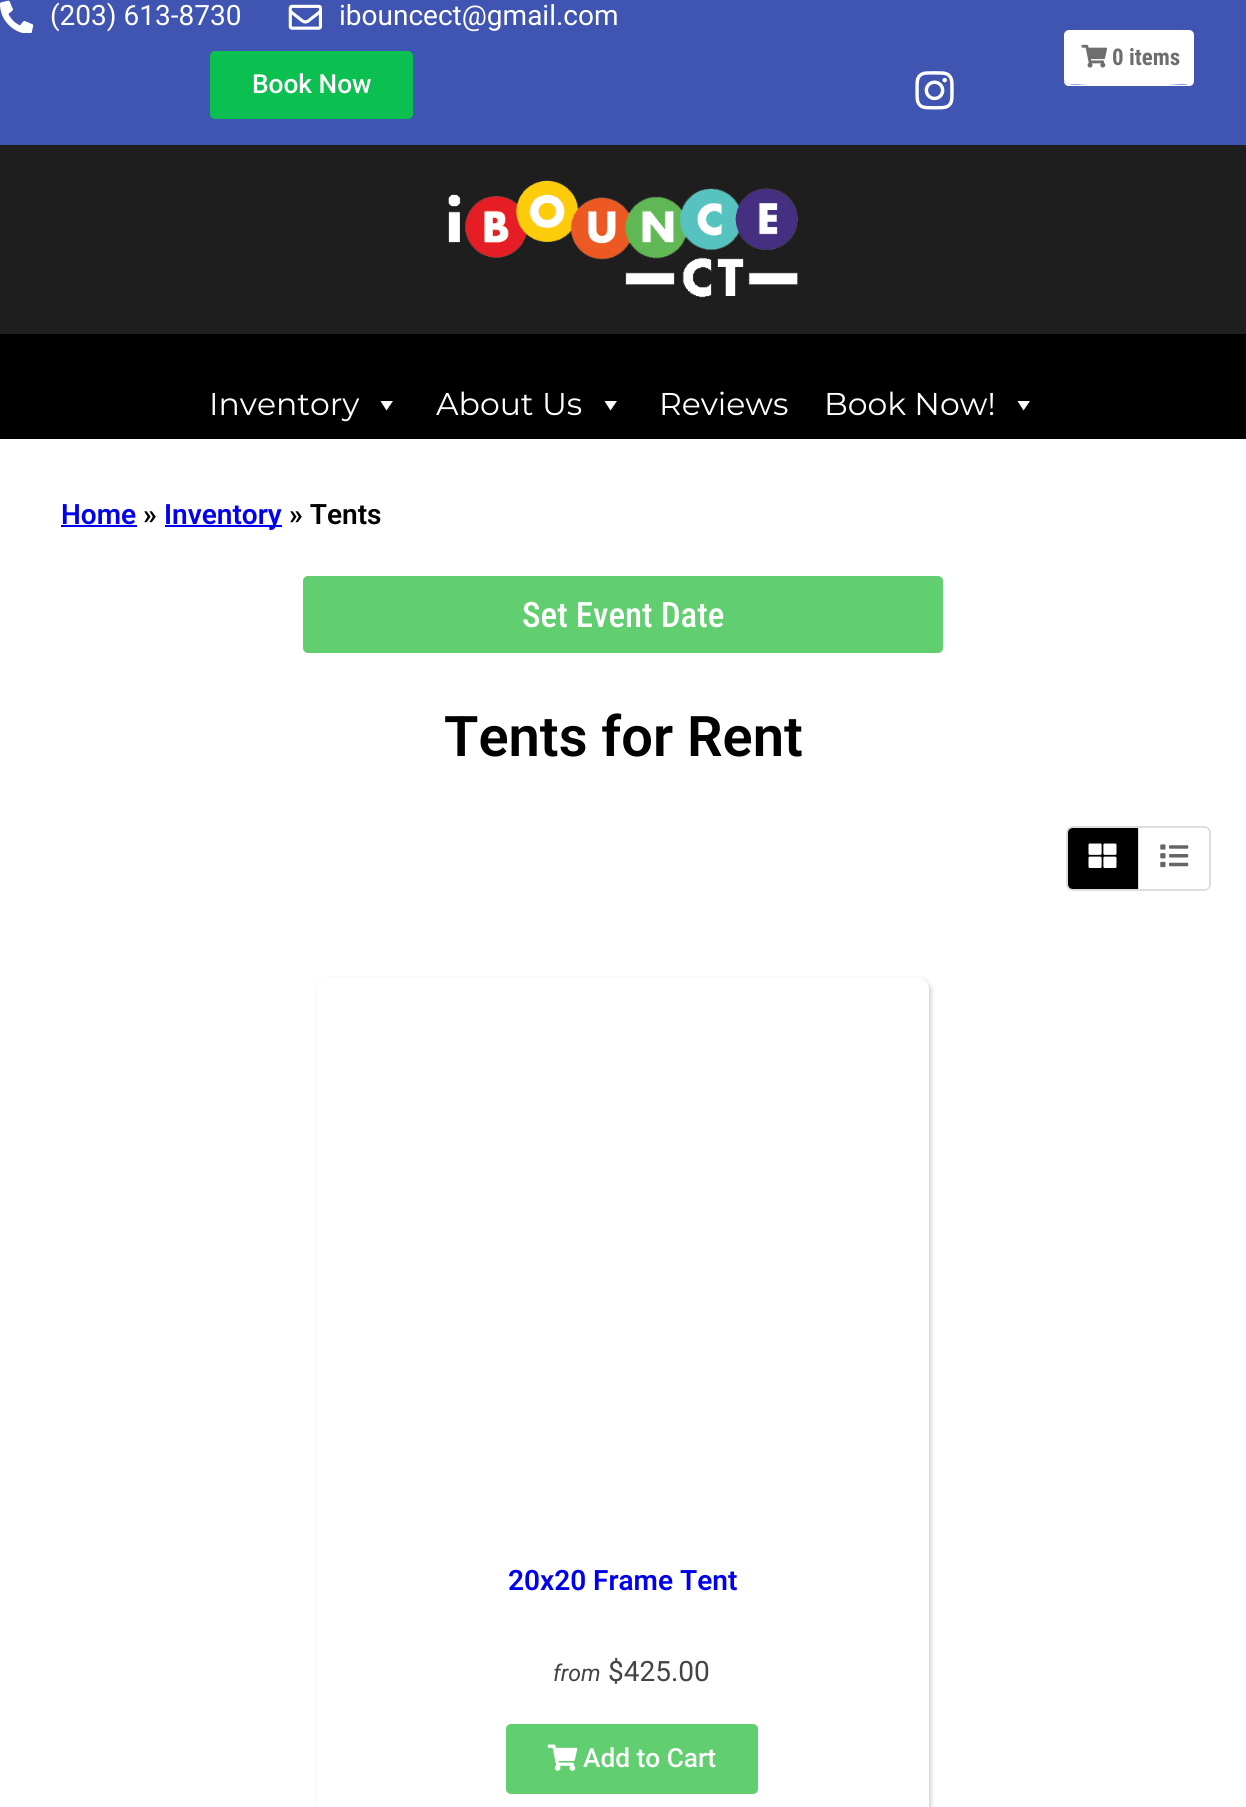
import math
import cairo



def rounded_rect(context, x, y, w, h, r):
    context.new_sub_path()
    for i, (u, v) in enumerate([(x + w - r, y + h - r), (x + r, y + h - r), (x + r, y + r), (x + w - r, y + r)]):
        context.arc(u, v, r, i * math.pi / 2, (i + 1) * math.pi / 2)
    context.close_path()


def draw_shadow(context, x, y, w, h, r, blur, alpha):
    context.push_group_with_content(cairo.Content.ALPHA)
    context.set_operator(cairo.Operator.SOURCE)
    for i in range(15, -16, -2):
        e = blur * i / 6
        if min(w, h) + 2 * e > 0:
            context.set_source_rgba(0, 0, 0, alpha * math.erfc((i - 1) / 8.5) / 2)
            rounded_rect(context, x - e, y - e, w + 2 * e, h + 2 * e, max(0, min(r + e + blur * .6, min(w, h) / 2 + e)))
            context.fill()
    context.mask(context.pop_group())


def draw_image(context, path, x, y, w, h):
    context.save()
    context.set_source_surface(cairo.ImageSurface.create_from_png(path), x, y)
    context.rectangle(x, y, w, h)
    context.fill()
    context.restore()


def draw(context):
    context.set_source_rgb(1, 1, 1)
    context.paint()
    context.set_source_rgb(64 / 255, 84 / 255, 178 / 255)
    context.rectangle(0, 0, 1246, 145)
    context.fill()
    draw_image(context, "images/1.png", 0, 0, 34, 33)
    draw_image(context, "images/2.png", 288, 4, 34, 26)
    context.set_source_rgb(12 / 255, 191 / 255, 81 / 255)
    rounded_rect(context, 210, 51, 203, 68, 5)
    context.fill()
    draw_image(context, "images/3.png", 915, 71, 39, 39)
    context.set_source_rgb(30 / 255, 30 / 255, 30 / 255)
    context.rectangle(0, 145, 1246, 189)
    context.fill()
    draw_image(context, "images/4.png", 448, 180, 350, 118)
    context.set_source_rgb(0, 0, 0)
    context.rectangle(0, 334, 1246, 105)
    context.fill()
    context.set_source_rgb(1, 1, 1)
    context.new_path()
    context.move_to(393, 401)
    context.line_to(386.5, 410.5)
    context.line_to(380.5, 401)
    context.close_path()
    context.fill()
    context.new_path()
    context.move_to(617, 401)
    context.line_to(610.5, 410.5)
    context.line_to(604.5, 401)
    context.close_path()
    context.fill()
    context.new_path()
    context.move_to(1030, 401)
    context.line_to(1023.5, 410.5)
    context.line_to(1017.5, 401)
    context.close_path()
    context.fill()
    context.set_source_rgb(0, 0, 238 / 255)
    context.rectangle(61, 525, 76, 2)
    context.fill()
    context.rectangle(165, 525, 117, 2)
    context.fill()
    context.set_source_rgb(1, 1, 1)
    context.new_path()
    context.move_to(1064, 79)
    context.line_to(1064, 81)
    context.curve_to(1064, 84, 1066, 86, 1069, 86)
    context.line_to(1189, 86)
    context.curve_to(1192, 86, 1194, 84, 1194, 81)
    context.line_to(1194, 37)
    context.line_to(1193, 35)
    context.line_to(1193, 80)
    context.curve_to(1192, 87, 1176, 84, 1168, 84)
    context.line_to(1089, 84)
    context.curve_to(1079, 84, 1064, 87, 1064, 79)
    context.close_path()
    context.fill()
    rounded_rect(context, 1064, 30, 130, 54, 5)
    context.fill()
    draw_image(context, "images/5.png", 1081, 44, 27, 24)
    context.set_source_rgb(97 / 255, 206 / 255, 112 / 255)
    rounded_rect(context, 303, 576, 640, 77, 5)
    context.fill()
    rounded_rect(context, 1067, 827, 143, 63, 6)
    context.set_source_rgb(221 / 255, 221 / 255, 221 / 255)
    context.stroke()
    context.set_source_rgb(0, 0, 0)
    context.new_path()
    context.move_to(1073, 828)
    context.line_to(1139, 828)
    context.line_to(1139, 889)
    context.line_to(1073, 889)
    context.curve_to(1070, 889, 1068, 887, 1068, 884)
    context.line_to(1068, 833)
    context.curve_to(1068, 830, 1070, 828, 1073, 828)
    context.close_path()
    context.fill()
    context.set_source_rgb(221 / 255, 221 / 255, 221 / 255)
    context.rectangle(1138, 828, 1, 61)
    context.fill()
    draw_image(context, "images/6.png", 1088, 843, 29, 25)
    context.set_source_rgb(1, 1, 1)
    context.new_path()
    context.move_to(1139, 828)
    context.line_to(1204, 828)
    context.curve_to(1207, 828, 1209, 830, 1209, 833)
    context.line_to(1209, 884)
    context.curve_to(1209, 887, 1207, 889, 1204, 889)
    context.line_to(1139, 889)
    context.close_path()
    context.fill()
    draw_image(context, "images/7.png", 1160, 844, 29, 24)
    context.set_source_rgb(0, 0, 0)
    draw_shadow(context, 319, 980, 612, 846, 11, 2.5, 0.2)
    context.set_source_rgb(1, 1, 1)
    rounded_rect(context, 317, 978, 612, 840, 11)
    context.fill()
    context.set_source_rgb(97 / 255, 206 / 255, 112 / 255)
    rounded_rect(context, 506, 1724, 252, 70, 5)
    context.fill()
    draw_image(context, "images/8.png", 547, 1744, 31, 27)
    context.select_font_face("Roboto")
    context.set_font_size(28)
    context.set_source_rgb(1, 1, 1)
    context.move_to(50, 25)
    context.show_text("(203) 613-8730")
    context.move_to(339, 25)
    context.show_text("ibouncect@gmail.com")
    context.select_font_face("Roboto Medium")
    context.set_font_size(26.25)
    context.move_to(252, 93)
    context.show_text("Book Now")
    context.select_font_face("Montserrat")
    context.set_font_size(31.5)
    context.move_to(209, 415)
    context.show_text("Inventory")
    context.move_to(436, 415)
    context.show_text("About Us")
    context.move_to(659, 415)
    context.show_text("Reviews")
    context.move_to(824, 415)
    context.show_text("Book Now!")
    context.select_font_face("Roboto SemiBold")
    context.set_font_size(28)
    context.set_source_rgb(0, 0, 238 / 255)
    context.move_to(61, 524)
    context.show_text("Home")
    context.set_source_rgb(0, 0, 0)
    context.move_to(143, 524)
    context.show_text("»")
    context.set_source_rgb(0, 0, 238 / 255)
    context.move_to(164, 524)
    context.show_text("Inventory")
    context.set_source_rgb(0, 0, 0)
    context.move_to(289, 524)
    context.show_text("» Tents")
    context.select_font_face("Roboto Condensed", cairo.FontSlant.NORMAL, cairo.FontWeight.BOLD)
    context.set_font_size(23)
    context.set_source_rgb(110 / 255, 110 / 255, 110 / 255)
    context.move_to(1112, 65)
    context.show_text("0 items")
    context.select_font_face("Roboto Condensed Medium")
    context.set_font_size(35)
    context.set_source_rgb(1, 1, 1)
    context.move_to(522, 627)
    context.show_text("Set Event Date")
    context.select_font_face("Roboto SemiBold")
    context.set_font_size(56)
    context.set_source_rgb(0, 0, 0)
    context.move_to(444, 756)
    context.show_text("Tents for Rent")
    context.set_font_size(28)
    context.set_source_rgb(0, 0, 238 / 255)
    context.move_to(508, 1590)
    context.show_text("20x20 Frame Tent")
    context.select_font_face("Roboto", cairo.FontSlant.ITALIC)
    context.set_font_size(23)
    context.set_source_rgb(68 / 255, 68 / 255, 68 / 255)
    context.move_to(553, 1681)
    context.show_text("from")
    context.select_font_face("Roboto")
    context.set_font_size(28)
    context.move_to(608, 1681)
    context.show_text("$425.00")
    context.select_font_face("Roboto Medium")
    context.set_font_size(26.25)
    context.set_source_rgb(1, 1, 1)
    context.move_to(583, 1767)
    context.show_text("Add to Cart")


surface = cairo.ImageSurface(cairo.Format.RGB24, 1246, 1807)
context = cairo.Context(surface)
options = cairo.FontOptions()
options.set_hint_metrics(cairo.HintMetrics.OFF)
options.set_hint_style(cairo.HintStyle.NONE)
context.set_font_options(options)
context.set_miter_limit(4)
draw(context)
surface.write_to_png("out.png")
